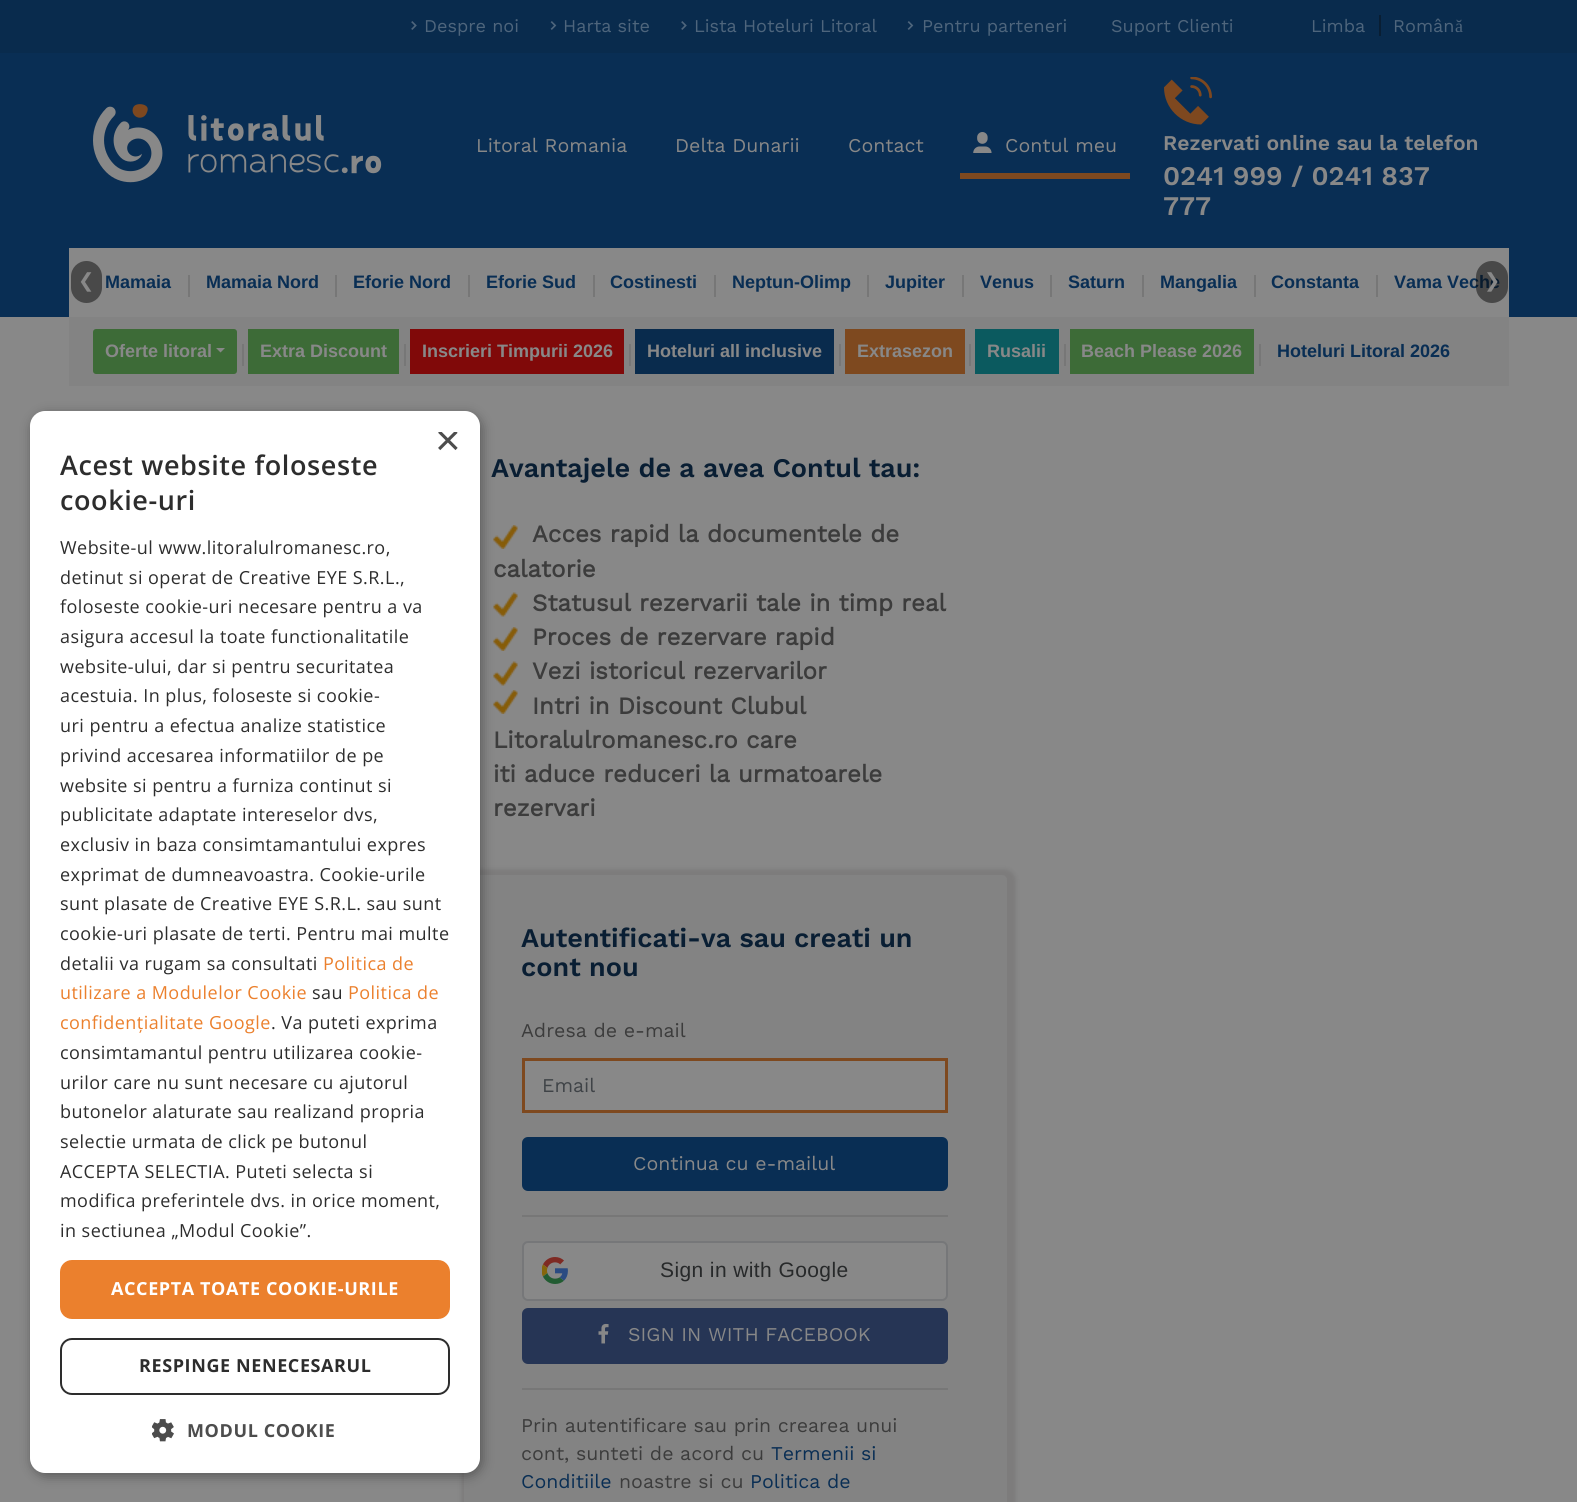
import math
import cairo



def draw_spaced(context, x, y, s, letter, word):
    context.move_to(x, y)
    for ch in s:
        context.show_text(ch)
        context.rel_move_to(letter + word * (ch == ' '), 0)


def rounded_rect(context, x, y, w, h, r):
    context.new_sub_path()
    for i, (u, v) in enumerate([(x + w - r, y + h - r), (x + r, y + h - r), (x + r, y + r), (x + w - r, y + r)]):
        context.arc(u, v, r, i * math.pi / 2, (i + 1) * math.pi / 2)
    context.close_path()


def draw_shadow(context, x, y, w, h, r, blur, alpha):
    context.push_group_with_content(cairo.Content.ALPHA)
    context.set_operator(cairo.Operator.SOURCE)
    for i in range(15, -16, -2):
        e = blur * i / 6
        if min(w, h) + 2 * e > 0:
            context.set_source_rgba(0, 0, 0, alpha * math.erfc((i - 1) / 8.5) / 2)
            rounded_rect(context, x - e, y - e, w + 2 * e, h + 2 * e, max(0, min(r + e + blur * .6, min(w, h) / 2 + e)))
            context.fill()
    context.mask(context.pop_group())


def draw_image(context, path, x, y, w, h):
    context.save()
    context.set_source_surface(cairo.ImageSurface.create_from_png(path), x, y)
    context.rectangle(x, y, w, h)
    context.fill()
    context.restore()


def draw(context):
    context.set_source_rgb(136 / 255, 136 / 255, 136 / 255)
    context.paint()
    context.set_source_rgb(9 / 255, 43 / 255, 77 / 255)
    context.rectangle(0, 0, 1577, 53)
    context.fill()
    draw_image(context, "images/1.png", 411, 21, 6, 9)
    draw_image(context, "images/2.png", 550, 21, 7, 9)
    draw_image(context, "images/1.png", 681, 21, 6, 9)
    draw_image(context, "images/2.png", 907, 21, 7, 9)
    context.set_source_rgb(9 / 255, 30 / 255, 51 / 255)
    context.rectangle(1379, 15, 2, 21)
    context.fill()
    context.set_source_rgb(9 / 255, 46 / 255, 84 / 255)
    context.rectangle(0, 53, 1577, 264)
    context.fill()
    draw_image(context, "images/3.png", 93, 104, 289, 79)
    context.set_source_rgb(126 / 255, 73 / 255, 31 / 255)
    context.rectangle(960, 173, 170, 6)
    context.fill()
    draw_image(context, "images/4.png", 973, 132, 19, 21)
    draw_image(context, "images/5.png", 1164, 77, 48, 48)
    context.set_source_rgb(136 / 255, 136 / 255, 136 / 255)
    context.rectangle(69, 248, 1440, 69)
    context.fill()
    context.set_source_rgb(73 / 255, 73 / 255, 73 / 255)
    rounded_rect(context, 71, 261, 31, 42, 15.5)
    context.fill()
    context.set_source_rgb(119 / 255, 119 / 255, 119 / 255)
    context.rectangle(188, 275, 2, 22)
    context.fill()
    context.rectangle(335, 275, 2, 22)
    context.fill()
    context.rectangle(468, 275, 2, 22)
    context.fill()
    context.rectangle(593, 275, 2, 22)
    context.fill()
    context.rectangle(714, 275, 2, 22)
    context.fill()
    context.rectangle(867, 275, 2, 22)
    context.fill()
    context.rectangle(962, 275, 2, 22)
    context.fill()
    context.rectangle(1050, 275, 2, 22)
    context.fill()
    context.rectangle(1142, 275, 2, 22)
    context.fill()
    context.rectangle(1254, 275, 2, 22)
    context.fill()
    context.rectangle(1376, 275, 2, 22)
    context.fill()
    context.set_source_rgb(131 / 255, 131 / 255, 131 / 255)
    context.rectangle(69, 317, 1440, 69)
    context.fill()
    context.set_source_rgb(61 / 255, 107 / 255, 55 / 255)
    rounded_rect(context, 93, 329, 144, 45, 3)
    context.fill()
    context.set_source_rgb(136 / 255, 136 / 255, 136 / 255)
    context.new_path()
    context.move_to(216, 348)
    context.line_to(225, 348)
    context.line_to(220.5, 352.5)
    context.close_path()
    context.fill()
    context.set_source_rgb(119 / 255, 119 / 255, 119 / 255)
    context.rectangle(242, 344, 2, 22)
    context.fill()
    context.set_source_rgb(61 / 255, 107 / 255, 55 / 255)
    context.rectangle(248, 329, 151, 45)
    context.fill()
    context.set_source_rgb(119 / 255, 119 / 255, 119 / 255)
    context.rectangle(404, 344, 2, 22)
    context.fill()
    context.set_source_rgb(128 / 255, 9 / 255, 9 / 255)
    context.rectangle(410, 329, 214, 45)
    context.fill()
    context.set_source_rgb(119 / 255, 119 / 255, 119 / 255)
    context.rectangle(629, 344, 2, 22)
    context.fill()
    context.set_source_rgb(9 / 255, 43 / 255, 77 / 255)
    context.rectangle(635, 329, 199, 45)
    context.fill()
    context.set_source_rgb(119 / 255, 119 / 255, 119 / 255)
    context.rectangle(839, 344, 2, 22)
    context.fill()
    context.set_source_rgb(126 / 255, 73 / 255, 31 / 255)
    context.rectangle(845, 329, 120, 45)
    context.fill()
    context.set_source_rgb(119 / 255, 119 / 255, 119 / 255)
    context.rectangle(969, 344, 2, 22)
    context.fill()
    context.set_source_rgb(11 / 255, 90 / 255, 95 / 255)
    context.rectangle(975, 329, 84, 45)
    context.fill()
    context.set_source_rgb(119 / 255, 119 / 255, 119 / 255)
    context.rectangle(1064, 344, 2, 22)
    context.fill()
    context.set_source_rgb(61 / 255, 107 / 255, 55 / 255)
    context.rectangle(1070, 329, 184, 45)
    context.fill()
    context.set_source_rgb(119 / 255, 119 / 255, 119 / 255)
    context.rectangle(1259, 344, 2, 22)
    context.fill()
    draw_image(context, "images/7.png", 493, 525, 25, 24)
    draw_image(context, "images/8.png", 493, 592, 25, 25)
    draw_image(context, "images/7.png", 493, 627, 25, 24)
    draw_image(context, "images/8.png", 493, 661, 25, 25)
    draw_image(context, "images/7.png", 493, 690, 25, 24)
    context.set_source_rgb(21 / 255, 15 / 255, 15 / 255)
    draw_shadow(context, 461, 869, 555, 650, 11, 2, 0.1)
    context.set_source_rgb(131 / 255, 131 / 255, 131 / 255)
    rounded_rect(context, 464, 875, 543, 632, 5)
    context.fill()
    context.set_source_rgb(0, 0, 0)
    draw_shadow(context, 32, 414, 450, 1062, 15, 6, 0.35)
    context.set_source_rgb(1, 1, 1)
    rounded_rect(context, 30, 411, 450, 1062, 15)
    context.fill()
    context.set_source_rgb(235 / 255, 128 / 255, 45 / 255)
    rounded_rect(context, 60, 1260, 390, 59, 12)
    context.fill()
    rounded_rect(context, 61, 1339, 388, 55, 11)
    context.set_source_rgb(45 / 255, 45 / 255, 45 / 255)
    context.stroke()
    draw_image(context, "images/6.png", 152, 1419, 22, 23)
    context.set_source_rgb(136 / 255, 136 / 255, 136 / 255)
    context.rectangle(523.5, 1059.5, 423, 52)
    context.fill_preserve()
    context.set_source_rgb(126 / 255, 73 / 255, 31 / 255)
    context.set_line_width(3)
    context.stroke()
    context.set_source_rgb(9 / 255, 46 / 255, 84 / 255)
    rounded_rect(context, 523, 1138, 424, 52, 5)
    context.fill_preserve()
    context.set_line_width(2)
    context.stroke()
    context.set_source_rgb(119 / 255, 119 / 255, 119 / 255)
    context.rectangle(522, 1215, 426, 2)
    context.fill()
    context.set_source_rgb(136 / 255, 136 / 255, 136 / 255)
    rounded_rect(context, 523, 1242, 424, 58, 5)
    context.fill_preserve()
    context.set_source_rgb(118 / 255, 119 / 255, 121 / 255)
    context.stroke()
    draw_image(context, "images/9.png", 542, 1257, 26, 27)
    context.set_source_rgb(38 / 255, 53 / 255, 85 / 255)
    rounded_rect(context, 522, 1308, 426, 56, 6)
    context.fill()
    draw_image(context, "images/10.png", 598, 1323, 11, 21)
    context.set_source_rgb(119 / 255, 119 / 255, 119 / 255)
    context.rectangle(522, 1388, 426, 2)
    context.fill()
    context.select_font_face("Work Sans")
    context.set_font_size(18)
    context.set_source_rgb(78 / 255, 101 / 255, 124 / 255)
    context.move_to(424, 32)
    context.show_text("Despre noi")
    context.move_to(563, 32)
    context.show_text("Harta site")
    context.move_to(694, 32)
    context.show_text("Lista Hoteluri Litoral")
    context.move_to(922, 32)
    context.show_text("Pentru parteneri")
    context.move_to(1111, 32)
    context.show_text("Suport Clienti")
    context.move_to(1311, 32)
    context.show_text("Limba")
    context.move_to(1393, 32)
    context.show_text("Român")
    context.select_font_face("Liberation Serif")
    context.move_to(1455, 32)
    context.show_text("ă")
    context.select_font_face("Work Sans")
    context.set_font_size(19.5)
    context.set_source_rgb(136 / 255, 136 / 255, 136 / 255)
    context.move_to(476, 152)
    context.show_text("Litoral Romania")
    context.move_to(675, 152)
    context.show_text("Delta Dunarii")
    context.move_to(848, 152)
    context.show_text("Contact")
    context.move_to(1005, 152)
    context.show_text("Contul meu")
    context.select_font_face("Work Sans SemiBold")
    context.set_font_size(21)
    context.move_to(1163, 150)
    context.show_text("Rezervati online sau la telefon")
    context.set_font_size(26.9)
    context.move_to(1163, 185)
    context.show_text("0241 999 / 0241 837")
    context.move_to(1163, 215)
    context.show_text("777")
    context.select_font_face("DejaVu Sans")
    context.set_font_size(19.5)
    context.move_to(78, 287)
    context.show_text("❮")
    context.select_font_face("Liberation Sans", cairo.FontSlant.NORMAL, cairo.FontWeight.BOLD)
    context.set_font_size(18)
    context.set_source_rgb(9 / 255, 46 / 255, 84 / 255)
    context.move_to(105, 288)
    context.show_text("Mamaia")
    context.move_to(206, 288)
    context.show_text("Mamaia Nord")
    context.move_to(353, 288)
    context.show_text("Eforie Nord")
    context.move_to(486, 288)
    context.show_text("Eforie Sud")
    context.move_to(610, 288)
    context.show_text("Costinesti")
    context.move_to(732, 288)
    context.show_text("Neptun-Olimp")
    context.move_to(885, 288)
    context.show_text("Jupiter")
    context.move_to(980, 288)
    context.show_text("Venus")
    context.move_to(1068, 288)
    context.show_text("Saturn")
    context.move_to(1160, 288)
    context.show_text("Mangalia")
    context.move_to(1271, 288)
    context.show_text("Constanta")
    context.move_to(1394, 288)
    context.show_text("Vama Veche")
    context.set_source_rgba(9 / 255, 9 / 255, 9 / 255, 0.5)
    rounded_rect(context, 1476, 261, 32, 42, 16)
    context.fill()
    context.select_font_face("DejaVu Sans")
    context.set_font_size(19.5)
    context.set_source_rgb(136 / 255, 136 / 255, 136 / 255)
    context.move_to(1484, 287)
    context.show_text("❯")
    context.select_font_face("Liberation Sans", cairo.FontSlant.NORMAL, cairo.FontWeight.BOLD)
    context.set_font_size(18)
    context.move_to(105, 357)
    context.show_text("Oferte litoral")
    context.move_to(260, 357)
    context.show_text("Extra Discount")
    context.move_to(422, 357)
    context.show_text("Inscrieri Timpurii 2026")
    context.move_to(647, 357)
    context.show_text("Hoteluri all inclusive")
    context.move_to(857, 357)
    context.show_text("Extrasezon")
    context.move_to(987, 357)
    context.show_text("Rusalii")
    context.move_to(1081, 357)
    context.show_text("Beach Please 2026")
    context.set_source_rgb(9 / 255, 46 / 255, 84 / 255)
    context.move_to(1277, 357)
    context.show_text("Hoteluri Litoral 2026")
    context.save()
    context.rectangle(435, 432, 23, 23)
    context.clip()
    context.select_font_face("Liberation Sans")
    context.set_font_size(44)
    context.set_source_rgb(77 / 255, 77 / 255, 77 / 255)
    context.move_to(435, 455)
    context.show_text("×")
    context.restore()
    context.select_font_face("Open Sans SemiBold")
    context.set_font_size(27)
    context.set_source_rgb(45 / 255, 45 / 255, 45 / 255)
    draw_spaced(context, 60, 475, "Acest website foloseste", 0.6, 0)
    draw_spaced(context, 60, 510, "cookie-uri", 0.6, 0)
    context.select_font_face("Open Sans")
    context.set_font_size(18)
    draw_spaced(context, 60, 554, "Website-ul www.litoralulromanesc.ro,", 0.45, 0)
    draw_spaced(context, 60, 584, "detinut si operat de Creative EYE S.R.L.,", 0.45, 0)
    draw_spaced(context, 60, 613, "foloseste cookie-uri necesare pentru a va", 0.45, 0)
    draw_spaced(context, 60, 643, "asigura accesul la toate functionalitatile", 0.45, 0)
    draw_spaced(context, 60, 673, "website-ului, dar si pentru securitatea", 0.45, 0)
    draw_spaced(context, 60, 702, "acestuia. In plus, foloseste si cookie-", 0.45, 0)
    draw_spaced(context, 60, 732, "uri pentru a efectua analize statistice", 0.45, 0)
    draw_spaced(context, 60, 762, "privind accesarea informatiilor de pe", 0.45, 0)
    draw_spaced(context, 60, 792, "website si pentru a furniza continut si", 0.45, 0)
    draw_spaced(context, 60, 821, "publicitate adaptate intereselor dvs,", 0.45, 0)
    draw_spaced(context, 60, 851, "exclusiv in baza consimtamantului expres", 0.45, 0)
    draw_spaced(context, 60, 881, "exprimat de dumneavoastra. Cookie-urile", 0.45, 0)
    draw_spaced(context, 60, 910, "sunt plasate de Creative EYE S.R.L. sau sunt", 0.45, 0)
    draw_spaced(context, 60, 940, "cookie-uri plasate de terti. Pentru mai multe", 0.45, 0)
    draw_spaced(context, 60, 970, "detalii va rugam sa consultati", 0.45, 0)
    context.set_source_rgb(235 / 255, 128 / 255, 45 / 255)
    draw_spaced(context, 323, 970, "Politica de", 0.45, 0)
    draw_spaced(context, 60, 999, "utilizare a Modulelor Cookie", 0.45, 0)
    context.set_source_rgb(45 / 255, 45 / 255, 45 / 255)
    draw_spaced(context, 312, 999, "sau", 0.45, 0)
    context.set_source_rgb(235 / 255, 128 / 255, 45 / 255)
    draw_spaced(context, 348, 999, "Politica de", 0.45, 0)
    draw_spaced(context, 60, 1029, "confidențialitate Google", 0.45, 0)
    context.set_source_rgb(45 / 255, 45 / 255, 45 / 255)
    draw_spaced(context, 271, 1029, ". Va puteti exprima", 0.45, 0)
    draw_spaced(context, 60, 1059, "consimtamantul pentru utilizarea cookie-", 0.45, 0)
    draw_spaced(context, 60, 1089, "urilor care nu sunt necesare cu ajutorul", 0.45, 0)
    draw_spaced(context, 60, 1118, "butonelor alaturate sau realizand propria", 0.45, 0)
    draw_spaced(context, 60, 1148, "selectie urmata de click pe butonul", 0.45, 0)
    draw_spaced(context, 60, 1178, "ACCEPTA SELECTIA. Puteti selecta si", 0.45, 0)
    draw_spaced(context, 60, 1207, "modifica preferintele dvs. in orice moment,", 0.45, 0)
    draw_spaced(context, 60, 1237, "in sectiunea „Modul Cookie”.", 0.45, 0)
    context.select_font_face("Open Sans", cairo.FontSlant.NORMAL, cairo.FontWeight.BOLD)
    context.set_source_rgb(1, 1, 1)
    draw_spaced(context, 111, 1295, "ACCEPTA TOATE COOKIE-URILE", 0.6, 0)
    context.set_source_rgb(45 / 255, 45 / 255, 45 / 255)
    draw_spaced(context, 139, 1372, "RESPINGE NENECESARUL", 0.6, 0)
    context.set_source_rgb(77 / 255, 77 / 255, 77 / 255)
    draw_spaced(context, 187, 1437, "MODUL COOKIE", 0.6, 0)
    context.select_font_face("Work Sans SemiBold")
    context.set_font_size(26.9)
    context.set_source_rgb(9 / 255, 30 / 255, 51 / 255)
    context.move_to(491, 477)
    context.show_text("Avantajele de a avea Contul tau:")
    context.select_font_face("Work Sans", cairo.FontSlant.NORMAL, cairo.FontWeight.BOLD)
    context.set_font_size(24)
    context.set_source_rgb(60 / 255, 60 / 255, 60 / 255)
    context.move_to(532, 542)
    context.show_text("Acces rapid la documentele de")
    context.move_to(493, 577)
    context.show_text("calatorie")
    context.move_to(532, 611)
    context.show_text("Statusul rezervarii tale in timp real")
    context.move_to(532, 645)
    context.show_text("Proces de rezervare rapid")
    context.move_to(532, 679)
    context.show_text("Vezi istoricul rezervarilor")
    context.move_to(532, 714)
    context.show_text("Intri in Discount Clubul")
    context.move_to(493, 748)
    context.show_text("Litoralulromanesc.ro care")
    context.move_to(493, 782)
    context.show_text("iti aduce reduceri la urmatoarele")
    context.move_to(493, 816)
    context.show_text("rezervari")
    context.select_font_face("Work Sans SemiBold")
    context.set_font_size(26.9)
    context.set_source_rgb(9 / 255, 30 / 255, 51 / 255)
    context.move_to(521, 947)
    context.show_text("Autentificati-va sau creati un")
    context.move_to(521, 976)
    context.show_text("cont nou")
    context.select_font_face("Work Sans")
    context.set_font_size(19.5)
    context.set_source_rgb(60 / 255, 60 / 255, 60 / 255)
    context.move_to(521, 1037)
    context.show_text("Adresa de e-mail")
    context.set_source_rgb(63 / 255, 67 / 255, 71 / 255)
    context.move_to(542, 1092)
    context.show_text("Email")
    context.set_source_rgb(136 / 255, 136 / 255, 136 / 255)
    context.move_to(633, 1170)
    context.show_text("Continua cu e-mailul")
    context.select_font_face("Liberation Sans")
    context.set_font_size(21)
    context.set_source_rgb(39 / 255, 41 / 255, 42 / 255)
    draw_spaced(context, 660, 1277, "Sign in with Google", 0.4, 0)
    context.select_font_face("Work Sans")
    context.set_font_size(19.5)
    context.set_source_rgb(136 / 255, 136 / 255, 136 / 255)
    context.move_to(628, 1341)
    context.show_text("SIGN IN WITH FACEBOOK")
    context.set_source_rgb(60 / 255, 60 / 255, 60 / 255)
    context.move_to(521, 1432)
    context.show_text("Prin autentificare sau prin crearea unui")
    context.move_to(521, 1460)
    context.show_text("cont, sunteti de acord cu")
    context.set_source_rgb(9 / 255, 46 / 255, 84 / 255)
    context.move_to(771, 1460)
    context.show_text("Termenii si")
    context.move_to(521, 1488)
    context.show_text("Conditiile")
    context.set_source_rgb(60 / 255, 60 / 255, 60 / 255)
    context.move_to(619, 1488)
    context.show_text("noastre si cu")
    context.set_source_rgb(9 / 255, 46 / 255, 84 / 255)
    context.move_to(750, 1488)
    context.show_text("Politica de")


surface = cairo.ImageSurface(cairo.Format.RGB24, 1577, 1502)
context = cairo.Context(surface)
options = cairo.FontOptions()
options.set_hint_metrics(cairo.HintMetrics.OFF)
options.set_hint_style(cairo.HintStyle.NONE)
context.set_font_options(options)
context.set_miter_limit(4)
draw(context)
surface.write_to_png("out.png")
